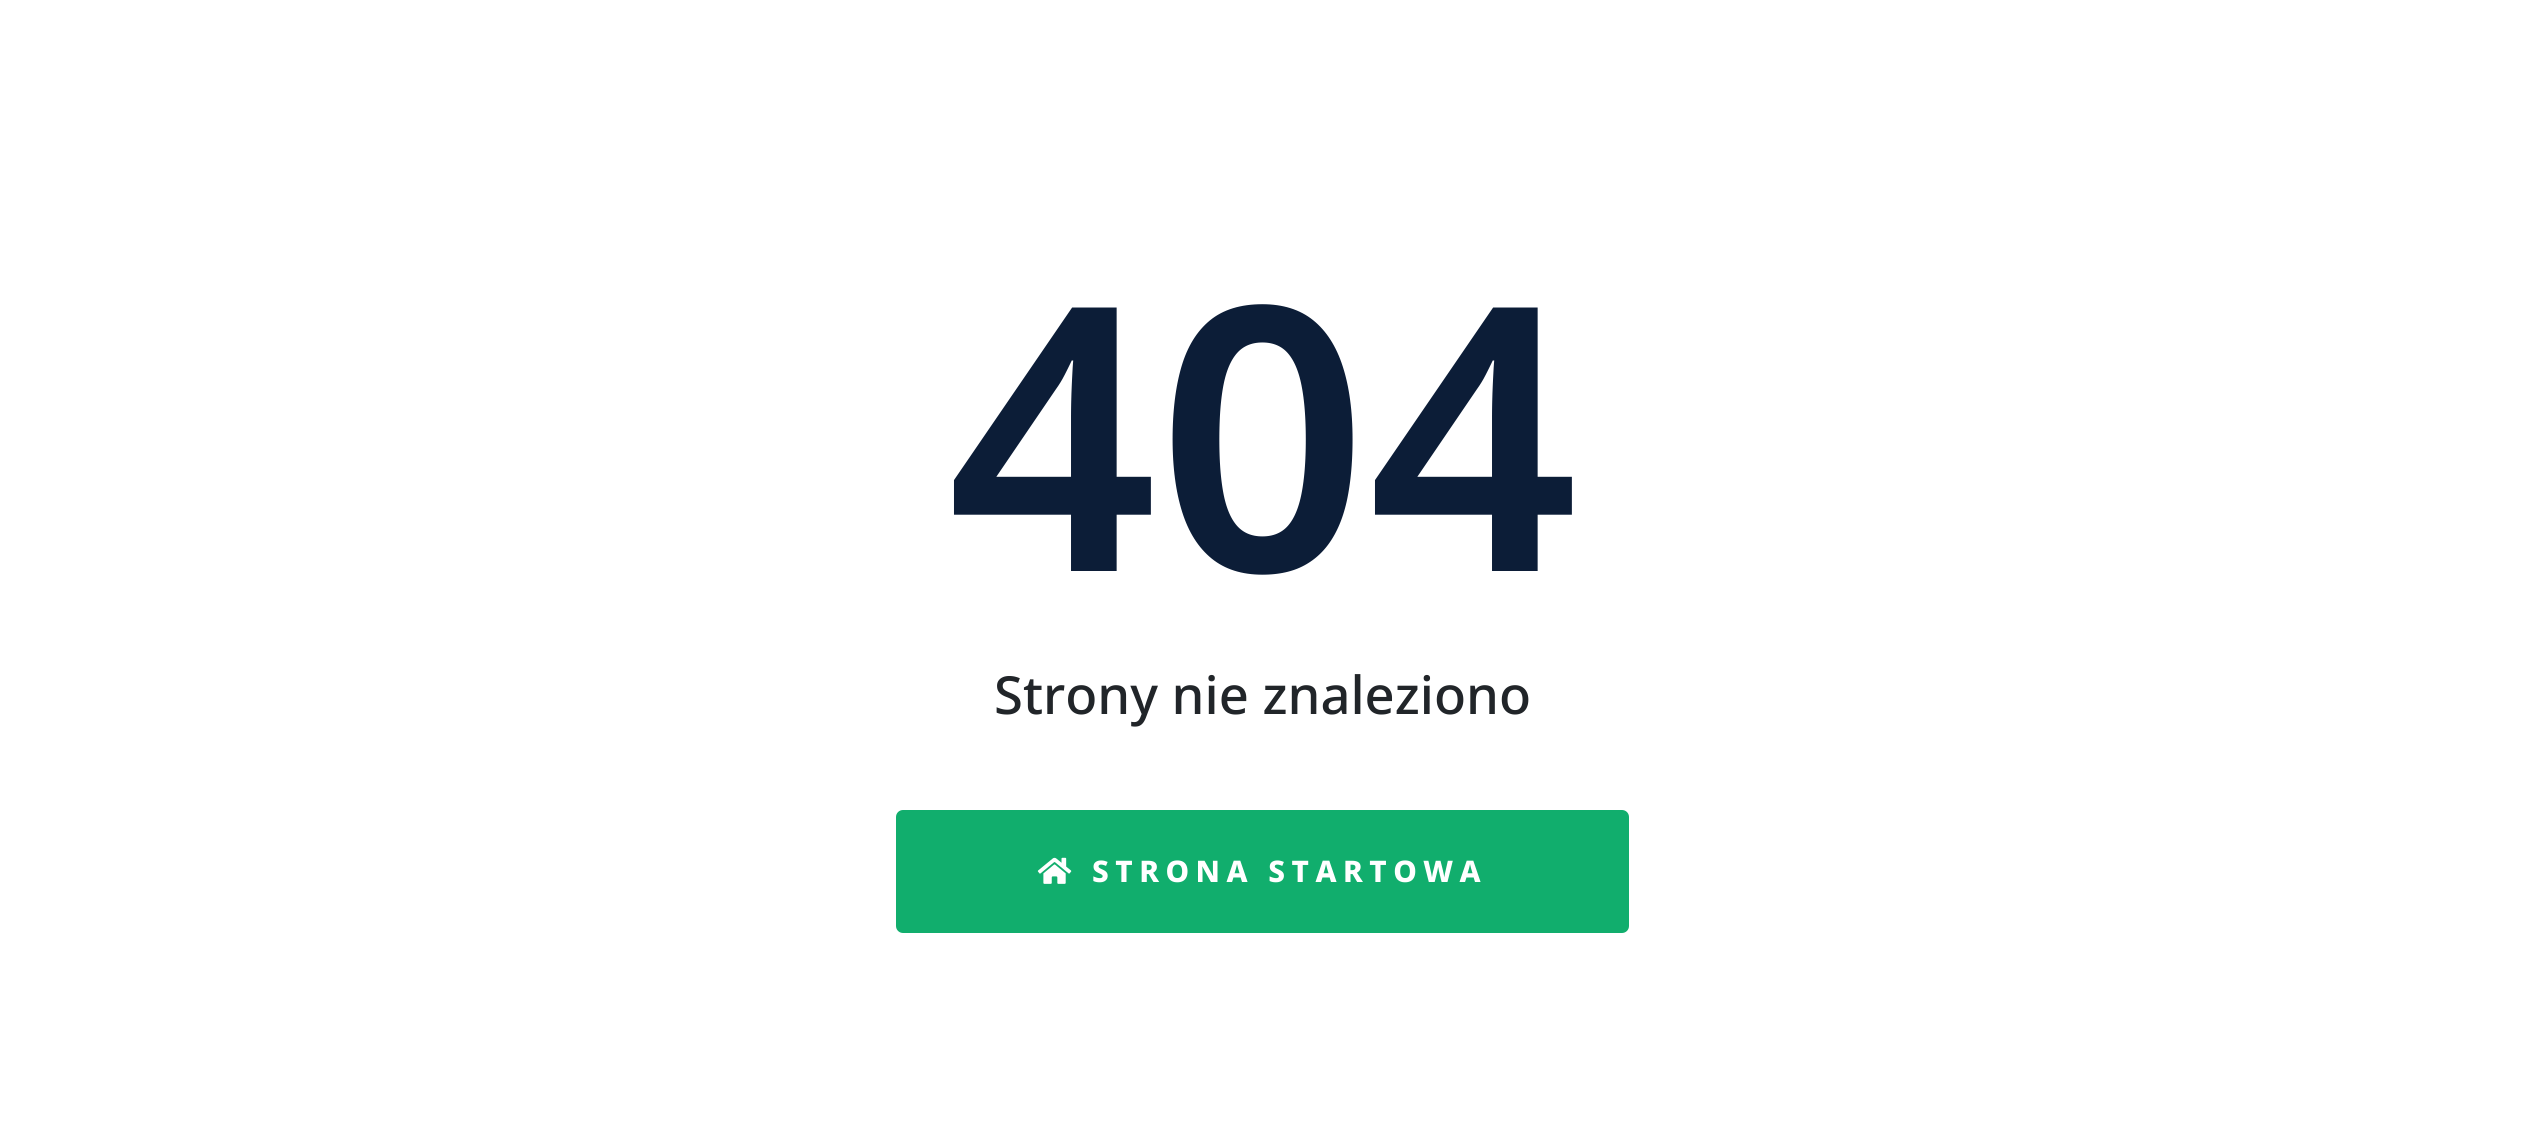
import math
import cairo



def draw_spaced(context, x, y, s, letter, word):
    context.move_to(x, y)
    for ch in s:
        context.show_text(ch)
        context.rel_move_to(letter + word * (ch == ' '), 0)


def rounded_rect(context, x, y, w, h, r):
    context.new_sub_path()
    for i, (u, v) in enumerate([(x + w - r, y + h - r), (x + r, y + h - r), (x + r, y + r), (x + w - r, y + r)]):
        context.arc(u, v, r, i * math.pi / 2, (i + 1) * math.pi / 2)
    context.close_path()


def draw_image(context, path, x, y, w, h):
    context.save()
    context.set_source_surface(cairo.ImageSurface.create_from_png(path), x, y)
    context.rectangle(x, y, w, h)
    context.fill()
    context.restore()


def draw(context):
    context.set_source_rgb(1, 1, 1)
    context.paint()
    context.set_source_rgb(17 / 255, 174 / 255, 109 / 255)
    rounded_rect(context, 896, 810, 733, 123, 7)
    context.fill()
    draw_image(context, "images/1.png", 1037, 857, 35, 27)
    context.select_font_face("Noto Sans SemiBold")
    context.set_font_size(368)
    context.set_source_rgb(12 / 255, 29 / 255, 55 / 255)
    context.move_to(947, 571)
    context.show_text("404")
    context.select_font_face("Noto Sans Medium")
    context.set_font_size(52.5)
    context.set_source_rgb(33 / 255, 37 / 255, 41 / 255)
    context.move_to(994, 714)
    context.show_text("Strony nie znaleziono")
    context.select_font_face("Noto Sans ExtraBold")
    context.set_font_size(29.75)
    context.set_source_rgb(1, 1, 1)
    draw_spaced(context, 1092, 882, "STRONA STARTOWA", 6.5, 0)


surface = cairo.ImageSurface(cairo.Format.RGB24, 2524, 1140)
context = cairo.Context(surface)
options = cairo.FontOptions()
options.set_hint_metrics(cairo.HintMetrics.OFF)
options.set_hint_style(cairo.HintStyle.NONE)
context.set_font_options(options)
context.set_miter_limit(4)
draw(context)
surface.write_to_png("out.png")
